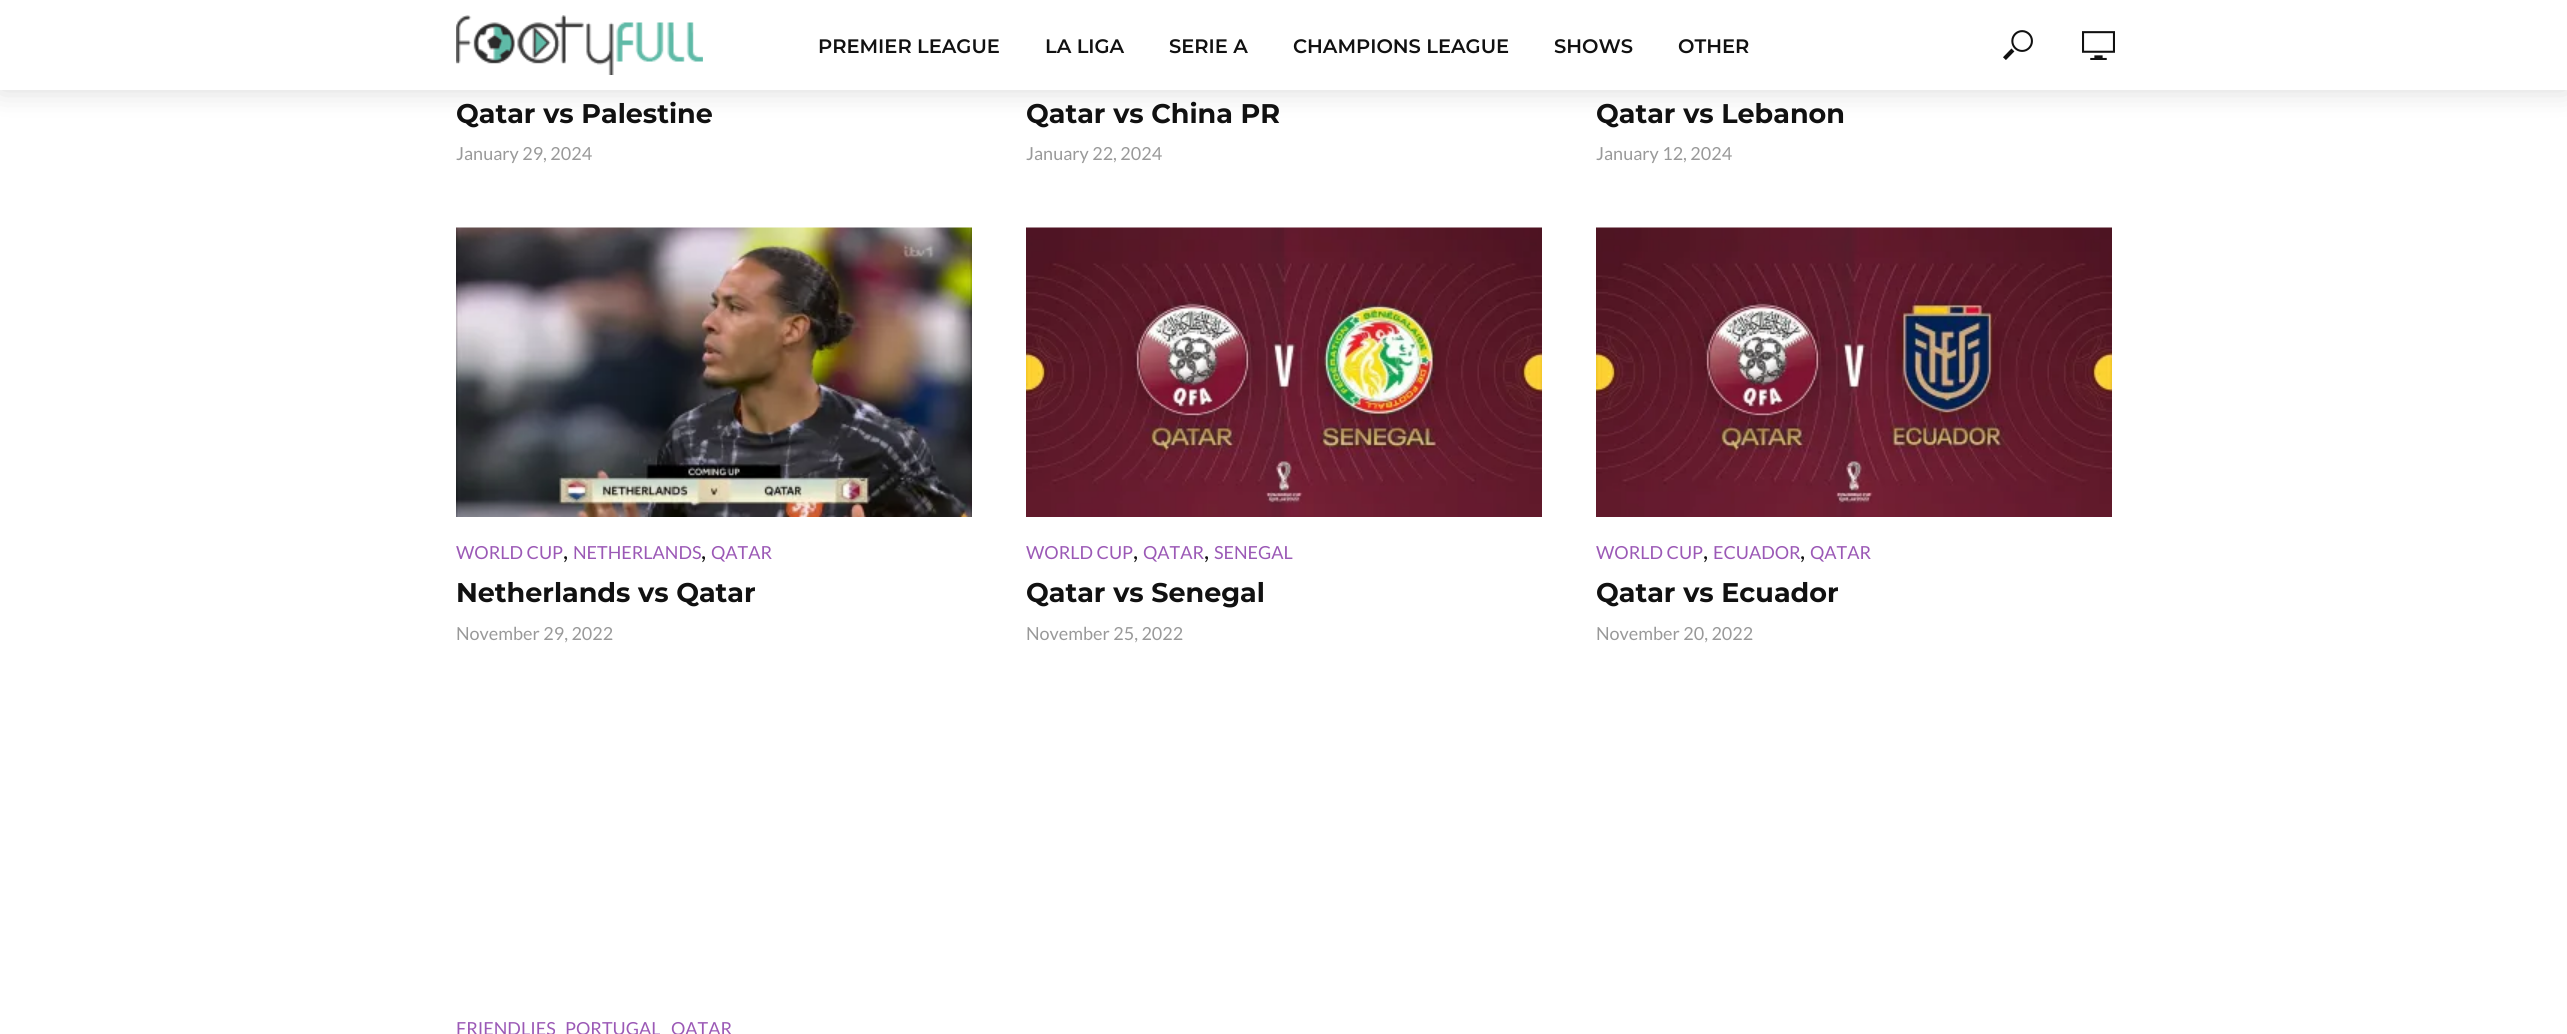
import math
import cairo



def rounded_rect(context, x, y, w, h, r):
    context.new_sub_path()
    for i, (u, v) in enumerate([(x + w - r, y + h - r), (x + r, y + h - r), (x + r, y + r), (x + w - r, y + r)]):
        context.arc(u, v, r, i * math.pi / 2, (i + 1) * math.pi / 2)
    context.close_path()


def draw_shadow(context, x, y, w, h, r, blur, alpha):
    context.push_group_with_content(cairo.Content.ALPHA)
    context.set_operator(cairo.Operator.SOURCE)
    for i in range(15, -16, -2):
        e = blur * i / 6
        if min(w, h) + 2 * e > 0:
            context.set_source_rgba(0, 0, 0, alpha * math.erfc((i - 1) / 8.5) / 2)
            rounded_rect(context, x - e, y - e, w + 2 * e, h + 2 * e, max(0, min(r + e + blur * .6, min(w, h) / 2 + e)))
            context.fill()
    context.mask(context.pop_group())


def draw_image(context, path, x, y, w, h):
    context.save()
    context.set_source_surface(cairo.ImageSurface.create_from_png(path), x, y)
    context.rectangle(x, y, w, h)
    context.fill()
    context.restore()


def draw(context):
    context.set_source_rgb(1, 1, 1)
    context.paint()
    context.set_source_rgb(0, 0, 0)
    draw_shadow(context, 0, 0, 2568, 90, 0, 15, 0.15)
    context.set_source_rgb(1, 1, 1)
    context.rectangle(0, 0, 2567, 90)
    context.fill()
    draw_image(context, "images/1.png", 456, 15, 247, 60)
    draw_image(context, "images/2.png", 2003, 30, 30, 30)
    draw_image(context, "images/3.png", 2082, 31, 33, 29)
    draw_image(context, "images/4.png", 456, 227, 516, 290)
    draw_image(context, "images/5.png", 1026, 227, 516, 290)
    draw_image(context, "images/6.png", 1596, 227, 516, 290)
    context.select_font_face("Montserrat SemiBold")
    context.set_font_size(19.5)
    context.set_source_rgb(17 / 255, 17 / 255, 17 / 255)
    context.move_to(818, 53)
    context.show_text("PREMIER LEAGUE")
    context.move_to(1045, 53)
    context.show_text("LA LIGA")
    context.move_to(1169, 53)
    context.show_text("SERIE A")
    context.move_to(1293, 53)
    context.show_text("CHAMPIONS LEAGUE")
    context.move_to(1554, 53)
    context.show_text("SHOWS")
    context.move_to(1678, 53)
    context.show_text("OTHER")
    context.select_font_face("Montserrat", cairo.FontSlant.NORMAL, cairo.FontWeight.BOLD)
    context.set_font_size(27)
    context.move_to(456, 123)
    context.show_text("Qatar vs Palestine")
    context.select_font_face("Lato")
    context.set_font_size(18)
    context.set_source_rgb(153 / 255, 153 / 255, 153 / 255)
    context.move_to(456, 160)
    context.show_text("January 29, 2024")
    context.select_font_face("Montserrat", cairo.FontSlant.NORMAL, cairo.FontWeight.BOLD)
    context.set_font_size(27)
    context.set_source_rgb(17 / 255, 17 / 255, 17 / 255)
    context.move_to(1026, 123)
    context.show_text("Qatar vs China PR")
    context.select_font_face("Lato")
    context.set_font_size(18)
    context.set_source_rgb(153 / 255, 153 / 255, 153 / 255)
    context.move_to(1026, 160)
    context.show_text("January 22, 2024")
    context.select_font_face("Montserrat", cairo.FontSlant.NORMAL, cairo.FontWeight.BOLD)
    context.set_font_size(27)
    context.set_source_rgb(17 / 255, 17 / 255, 17 / 255)
    context.move_to(1596, 123)
    context.show_text("Qatar vs Lebanon")
    context.select_font_face("Lato")
    context.set_font_size(18)
    context.set_source_rgb(153 / 255, 153 / 255, 153 / 255)
    context.move_to(1596, 160)
    context.show_text("January 12, 2024")
    context.set_source_rgb(155 / 255, 89 / 255, 182 / 255)
    context.move_to(456, 559)
    context.show_text("WORLD CUP")
    context.set_font_size(24)
    context.set_source_rgb(17 / 255, 17 / 255, 17 / 255)
    context.move_to(563, 559)
    context.show_text(",")
    context.set_font_size(18)
    context.set_source_rgb(155 / 255, 89 / 255, 182 / 255)
    context.move_to(573, 559)
    context.show_text("NETHERLANDS")
    context.set_font_size(24)
    context.set_source_rgb(17 / 255, 17 / 255, 17 / 255)
    context.move_to(701, 559)
    context.show_text(",")
    context.set_font_size(18)
    context.set_source_rgb(155 / 255, 89 / 255, 182 / 255)
    context.move_to(711, 559)
    context.show_text("QATAR")
    context.select_font_face("Montserrat", cairo.FontSlant.NORMAL, cairo.FontWeight.BOLD)
    context.set_font_size(27)
    context.set_source_rgb(17 / 255, 17 / 255, 17 / 255)
    context.move_to(456, 602)
    context.show_text("Netherlands vs Qatar")
    context.select_font_face("Lato")
    context.set_font_size(18)
    context.set_source_rgb(153 / 255, 153 / 255, 153 / 255)
    context.move_to(456, 640)
    context.show_text("November 29, 2022")
    context.set_source_rgb(155 / 255, 89 / 255, 182 / 255)
    context.move_to(1026, 559)
    context.show_text("WORLD CUP")
    context.set_font_size(24)
    context.set_source_rgb(17 / 255, 17 / 255, 17 / 255)
    context.move_to(1133, 559)
    context.show_text(",")
    context.set_font_size(18)
    context.set_source_rgb(155 / 255, 89 / 255, 182 / 255)
    context.move_to(1143, 559)
    context.show_text("QATAR")
    context.set_font_size(24)
    context.set_source_rgb(17 / 255, 17 / 255, 17 / 255)
    context.move_to(1204, 559)
    context.show_text(",")
    context.set_font_size(18)
    context.set_source_rgb(155 / 255, 89 / 255, 182 / 255)
    context.move_to(1214, 559)
    context.show_text("SENEGAL")
    context.select_font_face("Montserrat", cairo.FontSlant.NORMAL, cairo.FontWeight.BOLD)
    context.set_font_size(27)
    context.set_source_rgb(17 / 255, 17 / 255, 17 / 255)
    context.move_to(1026, 602)
    context.show_text("Qatar vs Senegal")
    context.select_font_face("Lato")
    context.set_font_size(18)
    context.set_source_rgb(153 / 255, 153 / 255, 153 / 255)
    context.move_to(1026, 640)
    context.show_text("November 25, 2022")
    context.set_source_rgb(155 / 255, 89 / 255, 182 / 255)
    context.move_to(1596, 559)
    context.show_text("WORLD CUP")
    context.set_font_size(24)
    context.set_source_rgb(17 / 255, 17 / 255, 17 / 255)
    context.move_to(1703, 559)
    context.show_text(",")
    context.set_font_size(18)
    context.set_source_rgb(155 / 255, 89 / 255, 182 / 255)
    context.move_to(1713, 559)
    context.show_text("ECUADOR")
    context.set_font_size(24)
    context.set_source_rgb(17 / 255, 17 / 255, 17 / 255)
    context.move_to(1800, 559)
    context.show_text(",")
    context.set_font_size(18)
    context.set_source_rgb(155 / 255, 89 / 255, 182 / 255)
    context.move_to(1810, 559)
    context.show_text("QATAR")
    context.select_font_face("Montserrat", cairo.FontSlant.NORMAL, cairo.FontWeight.BOLD)
    context.set_font_size(27)
    context.set_source_rgb(17 / 255, 17 / 255, 17 / 255)
    context.move_to(1596, 602)
    context.show_text("Qatar vs Ecuador")
    context.select_font_face("Lato")
    context.set_font_size(18)
    context.set_source_rgb(153 / 255, 153 / 255, 153 / 255)
    context.move_to(1596, 640)
    context.show_text("November 20, 2022")
    context.set_source_rgb(155 / 255, 89 / 255, 182 / 255)
    context.move_to(456, 1035)
    context.show_text("FRIENDLIES")
    context.move_to(565, 1035)
    context.show_text("PORTUGAL")
    context.move_to(671, 1035)
    context.show_text("QATAR")


surface = cairo.ImageSurface(cairo.Format.RGB24, 2567, 1034)
context = cairo.Context(surface)
options = cairo.FontOptions()
options.set_hint_metrics(cairo.HintMetrics.OFF)
options.set_hint_style(cairo.HintStyle.NONE)
context.set_font_options(options)
context.set_miter_limit(4)
draw(context)
surface.write_to_png("out.png")
